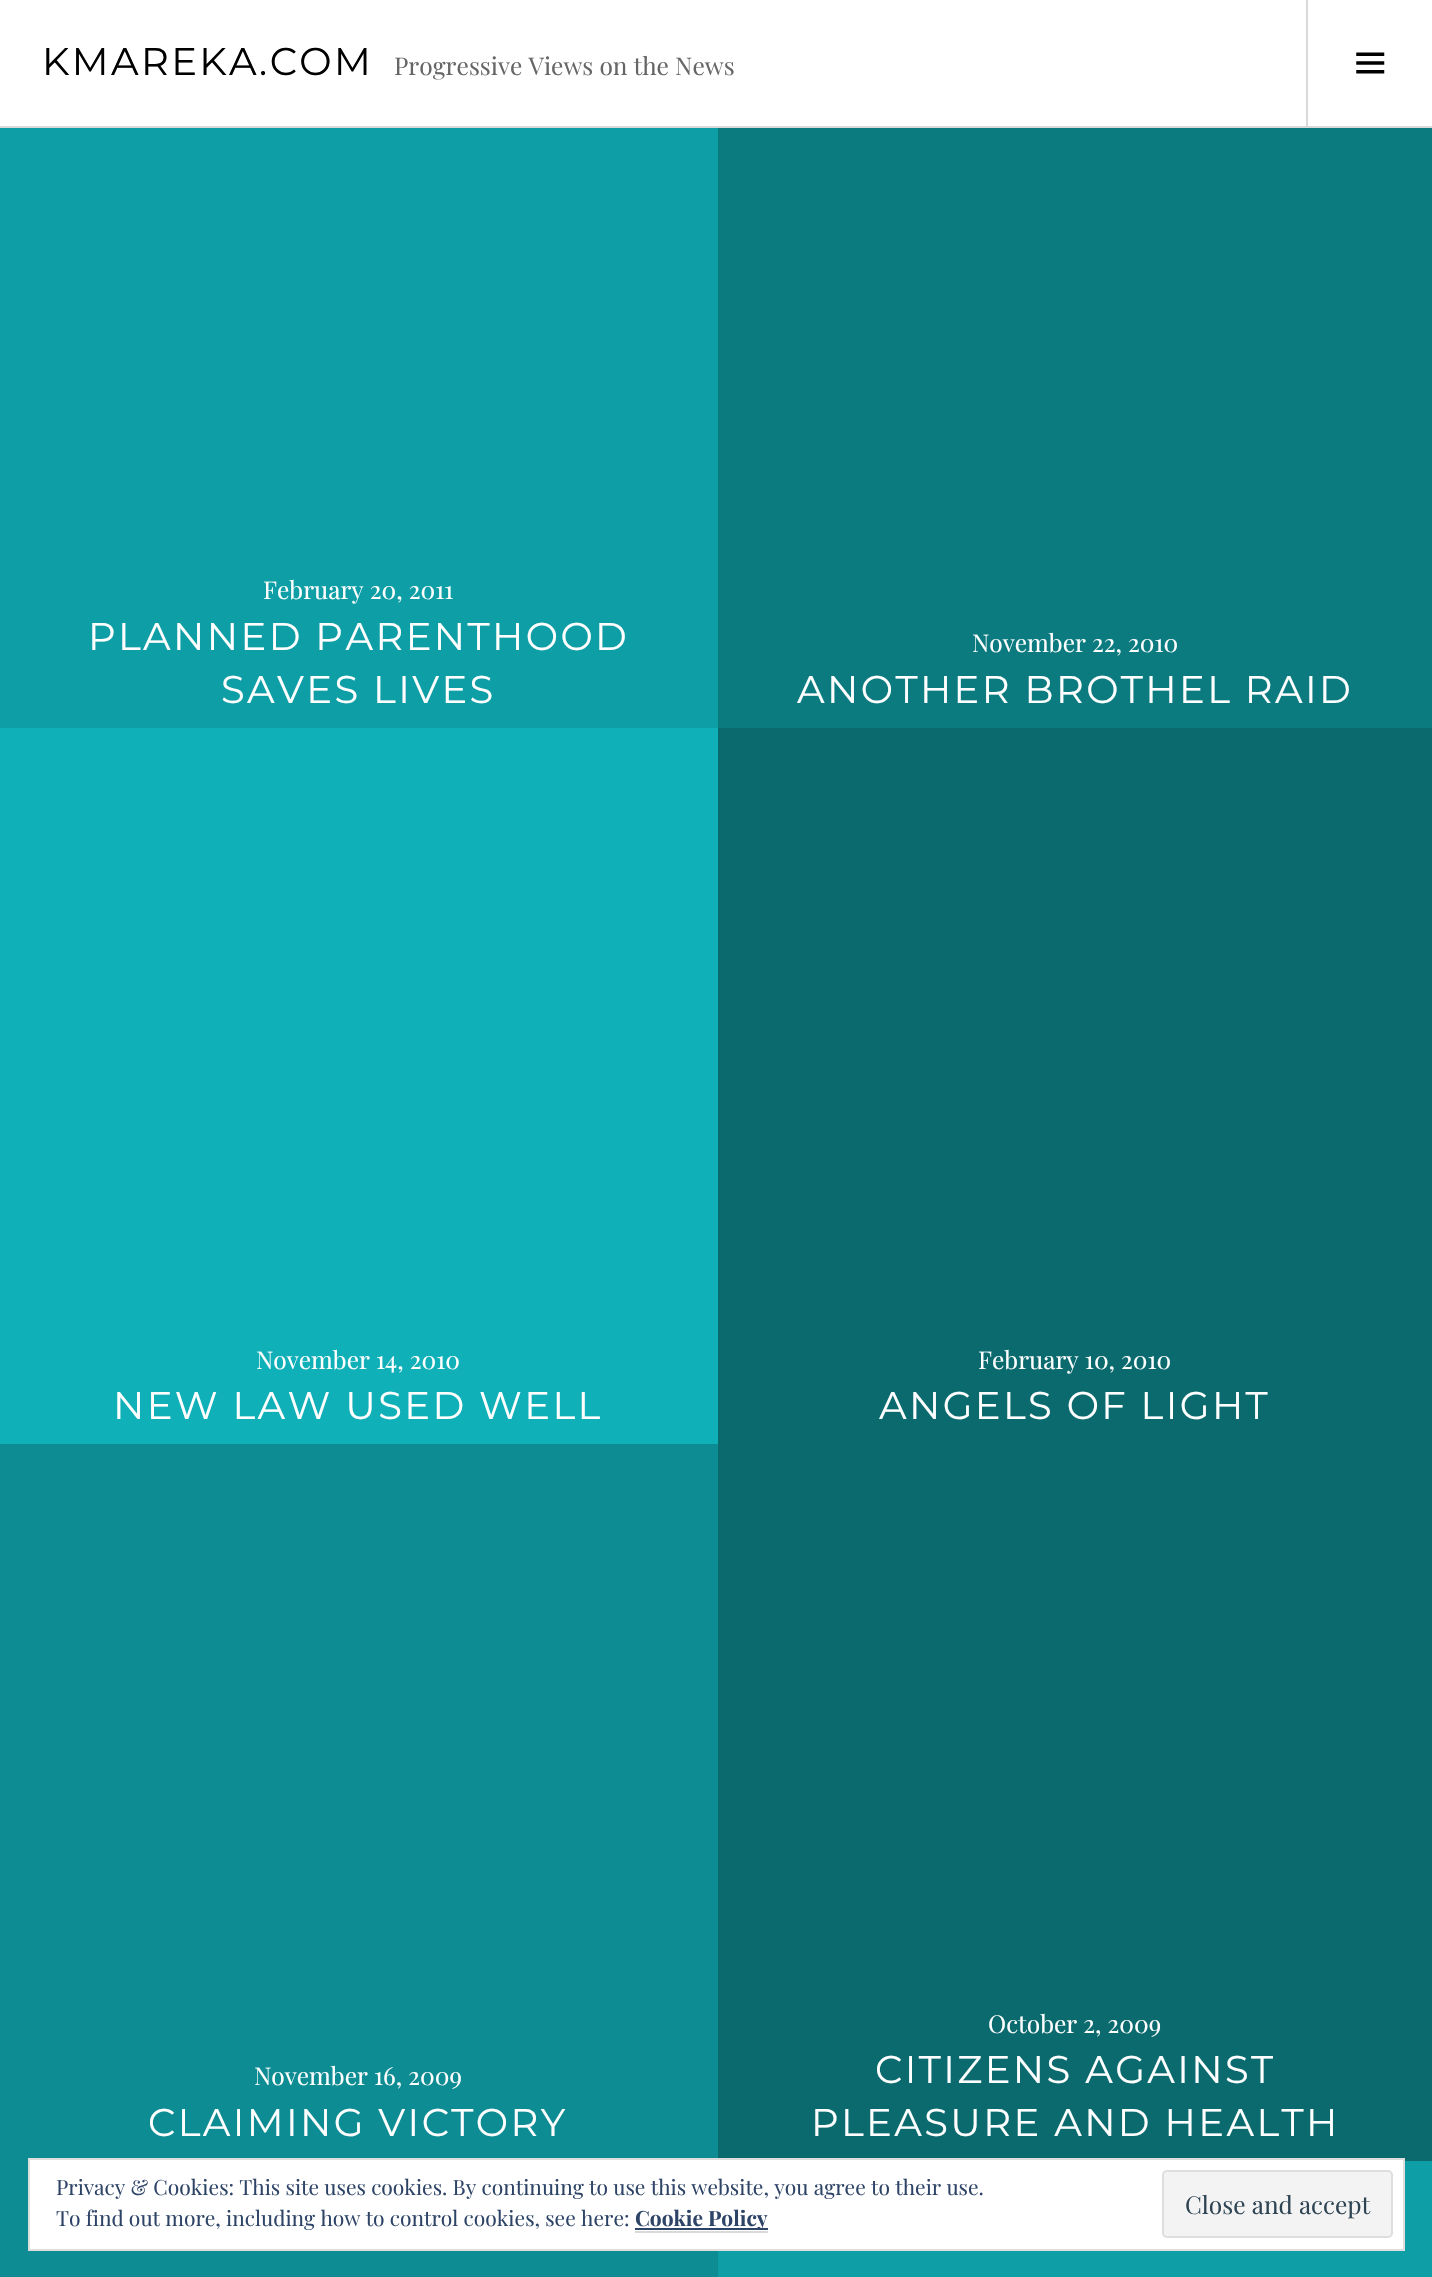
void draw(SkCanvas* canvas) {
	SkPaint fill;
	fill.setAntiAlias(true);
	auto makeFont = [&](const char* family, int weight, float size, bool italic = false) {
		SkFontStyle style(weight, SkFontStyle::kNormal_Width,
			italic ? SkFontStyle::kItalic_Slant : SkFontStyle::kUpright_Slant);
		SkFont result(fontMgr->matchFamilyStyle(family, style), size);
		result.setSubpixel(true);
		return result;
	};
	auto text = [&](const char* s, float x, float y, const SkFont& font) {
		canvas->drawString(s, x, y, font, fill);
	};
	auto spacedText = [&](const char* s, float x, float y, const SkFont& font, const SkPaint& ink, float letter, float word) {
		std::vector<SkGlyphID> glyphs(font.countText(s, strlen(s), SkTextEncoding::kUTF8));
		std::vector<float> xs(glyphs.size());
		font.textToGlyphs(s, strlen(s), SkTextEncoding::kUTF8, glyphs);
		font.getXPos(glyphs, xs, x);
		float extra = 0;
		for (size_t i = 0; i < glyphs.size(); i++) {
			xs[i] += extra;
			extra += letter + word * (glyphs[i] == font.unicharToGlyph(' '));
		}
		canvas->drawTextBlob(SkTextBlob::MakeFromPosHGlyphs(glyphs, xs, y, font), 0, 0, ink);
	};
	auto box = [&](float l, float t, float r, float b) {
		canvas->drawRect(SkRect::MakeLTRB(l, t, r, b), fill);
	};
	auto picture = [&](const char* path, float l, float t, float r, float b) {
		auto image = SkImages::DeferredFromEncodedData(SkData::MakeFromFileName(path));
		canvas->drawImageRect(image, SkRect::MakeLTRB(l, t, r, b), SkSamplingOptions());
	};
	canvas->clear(0xFF0E9EA5);
	fill.setColor(0xFFFFFFFF);
	box(0, 0, 1432, 126);
	fill.setColor(0xFFD9D9D9);
	box(0, 126, 1432, 128);
	box(1306, 0, 1308, 126);
	picture("image0.png", 1356, 52, 1385, 74);
	fill.setColor(0xFF0B7B80);
	box(718, 128, 1432, 728);
	fill.setColor(0xFF10B0B8);
	box(0, 728, 718, 1444);
	fill.setColor(0xFF0A6A6E);
	box(718, 728, 1432, 2161);
	fill.setColor(0xFF0D8D93);
	box(0, 1444, 718, 2277);
	fill.setColor(0xFFFFFFFF);
	canvas->drawRect(SkRect::MakeLTRB(29, 2159, 1404, 2250), fill);
	fill.setStyle(SkPaint::kStroke_Style);
	fill.setStrokeWidth(2);
	fill.setColor(0xFFDEDEDE);
	canvas->drawRect(SkRect::MakeLTRB(29, 2159, 1404, 2250), fill);
	fill.setStyle(SkPaint::kFill_Style);
	fill.setColor(0xFFD9D9D9);
	box(635, 2231, 768, 2233);
	fill.setColor(0xFF2E4467);
	box(635, 2228, 768, 2230);
	fill.setColor(0xFFF3F3F3);
	canvas->drawRoundRect(SkRect::MakeLTRB(1163, 2171, 1392, 2237), 4, 4, fill);
	fill.setStyle(SkPaint::kStroke_Style);
	fill.setColor(0xFFDEDEDE);
	canvas->drawRoundRect(SkRect::MakeLTRB(1163, 2171, 1392, 2237), 4, 4, fill);
	auto font1 = makeFont("Montserrat", 400, 38.5f);
	fill.setStyle(SkPaint::kFill_Style);
	fill.setColor(0xFF000000);
	spacedText("KMAREKA.COM", 42, 75, font1, fill, 2.4f, 0);
	auto font2 = makeFont("Playfair Display", 400, 24.5f);
	fill.setColor(0xFF666666);
	text("Progressive Views on the News", 394, 75, font2);
	fill.setColor(0xFFFFFFFF);
	text("February 20, 2011", 263, 599, font2);
	spacedText("PLANNED PARENTHOOD", 88, 650, font1, fill, 2.4f, 0);
	spacedText("SAVES LIVES", 221, 703, font1, fill, 2.4f, 0);
	text("November 22, 2010", 972, 652, font2);
	spacedText("ANOTHER BROTHEL RAID", 797, 703, font1, fill, 2.4f, 0);
	text("November 14, 2010", 256, 1369, font2);
	spacedText("NEW LAW USED WELL", 113, 1419, font1, fill, 2.4f, 0);
	text("February 10, 2010", 978, 1369, font2);
	spacedText("ANGELS OF LIGHT", 879, 1419, font1, fill, 2.4f, 0);
	text("November 16, 2009", 254, 2085, font2);
	spacedText("CLAIMING VICTORY", 148, 2136, font1, fill, 2.4f, 0);
	text("October 2, 2009", 988, 2033, font2);
	spacedText("CITIZENS AGAINST", 875, 2083, font1, fill, 2.4f, 0);
	spacedText("PLEASURE AND HEALTH", 811, 2136, font1, fill, 2.4f, 0);
	auto font3 = makeFont("Playfair Display", 400, 21);
	fill.setColor(0xFF2E4467);
	text("Privacy & Cookies: This site uses cookies. By continuing to use this website, you agree to their use.", 56, 2195, font3);
	text("To find out more, including how to control cookies, see here:", 56, 2226, font3);
	auto font4 = makeFont("Playfair Display", 700, 21);
	text("Cookie Policy", 635, 2226, font4);
	fill.setColor(0xFF2E4453);
	text("Close and accept", 1185, 2214, font2);
}
